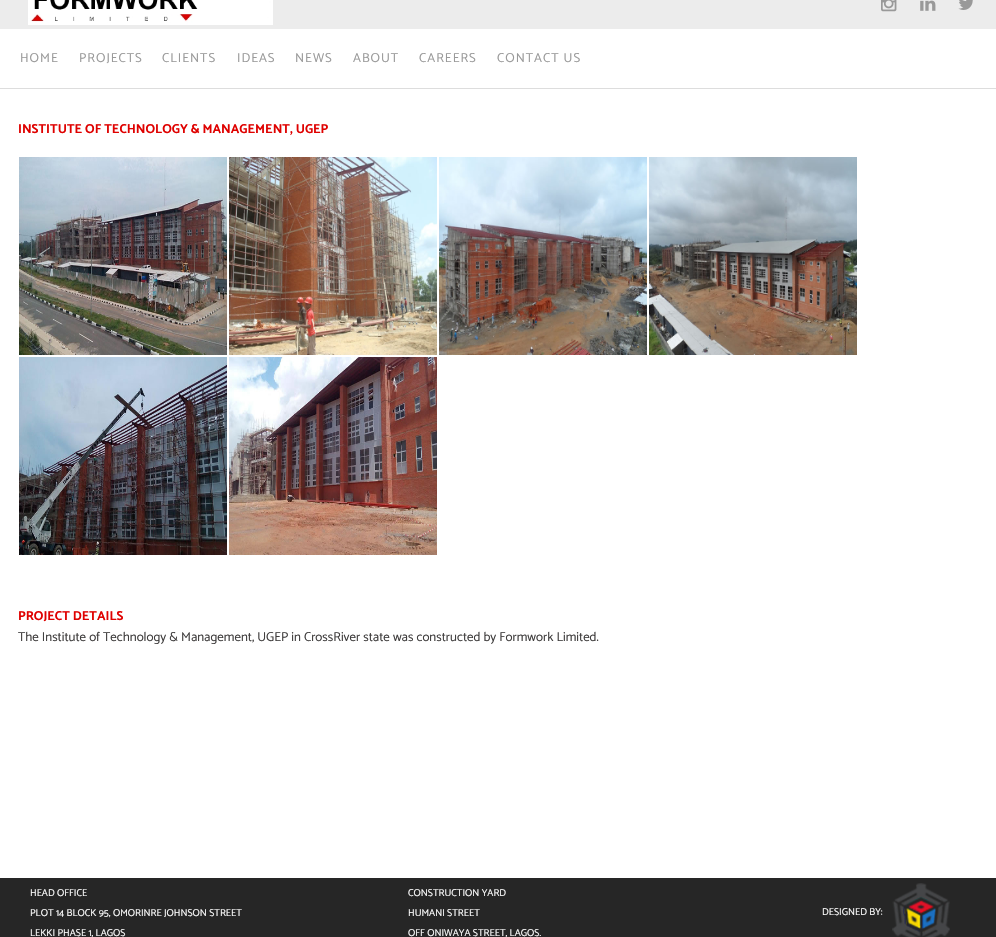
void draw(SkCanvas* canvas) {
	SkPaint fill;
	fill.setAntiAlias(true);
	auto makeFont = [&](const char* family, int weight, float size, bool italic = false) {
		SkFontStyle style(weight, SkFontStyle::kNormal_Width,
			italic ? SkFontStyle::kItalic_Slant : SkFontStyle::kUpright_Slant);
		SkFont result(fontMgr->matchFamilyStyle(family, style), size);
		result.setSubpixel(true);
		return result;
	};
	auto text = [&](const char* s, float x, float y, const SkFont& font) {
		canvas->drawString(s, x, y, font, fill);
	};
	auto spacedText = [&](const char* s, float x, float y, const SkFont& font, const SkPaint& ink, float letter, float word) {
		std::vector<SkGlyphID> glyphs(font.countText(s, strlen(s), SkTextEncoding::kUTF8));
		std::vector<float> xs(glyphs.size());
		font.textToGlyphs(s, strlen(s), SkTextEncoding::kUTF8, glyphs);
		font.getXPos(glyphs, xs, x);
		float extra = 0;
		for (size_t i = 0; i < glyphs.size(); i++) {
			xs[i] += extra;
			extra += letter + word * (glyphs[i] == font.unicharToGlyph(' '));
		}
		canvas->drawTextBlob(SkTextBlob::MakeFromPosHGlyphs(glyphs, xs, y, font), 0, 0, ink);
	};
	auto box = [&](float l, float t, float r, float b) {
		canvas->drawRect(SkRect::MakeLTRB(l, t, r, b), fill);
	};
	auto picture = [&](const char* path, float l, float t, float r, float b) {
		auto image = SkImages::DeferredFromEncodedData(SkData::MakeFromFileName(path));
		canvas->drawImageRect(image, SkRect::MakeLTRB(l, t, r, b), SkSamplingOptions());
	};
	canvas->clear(0xFFFFFFFF);
	fill.setColor(0xFFECECEC);
	box(0, 0, 996, 29);
	picture("image0.png", 28, 0, 273, 25);
	picture("image1.png", 881, 0, 897, 12);
	picture("image2.png", 920, 0, 936, 11);
	picture("image3.png", 958, 0, 973, 10);
	fill.setColor(0xFFDDDDDD);
	box(0, 88, 996, 89);
	picture("image4.png", 19, 157, 227, 355);
	picture("image5.png", 229, 157, 437, 355);
	picture("image6.png", 439, 157, 647, 355);
	picture("image7.png", 649, 157, 857, 355);
	picture("image8.png", 19, 357, 227, 555);
	picture("image9.png", 229, 357, 437, 555);
	fill.setColor(0xFF262626);
	box(0, 878, 996, 937);
	picture("image10.png", 892, 883, 950, 937);
	auto font1 = makeFont("Catamaran", 400, 13);
	fill.setColor(0xFF999999);
	spacedText("HOME", 20, 62, font1, fill, 1, 0);
	spacedText("PROJECTS", 79, 62, font1, fill, 1, 0);
	spacedText("CLIENTS", 162, 62, font1, fill, 1, 0);
	spacedText("IDEAS", 237, 62, font1, fill, 1, 0);
	spacedText("NEWS", 295, 62, font1, fill, 1, 0);
	spacedText("ABOUT", 353, 62, font1, fill, 1, 0);
	spacedText("CAREERS", 419, 62, font1, fill, 1, 0);
	spacedText("CONTACT US", 497, 62, font1, fill, 1, 0);
	auto font2 = makeFont("Catamaran", 700, 13);
	fill.setColor(0xFFDF0100);
	text("INSTITUTE OF TECHNOLOGY & MANAGEMENT, UGEP", 18, 133, font2);
	text("PROJECT DETAILS", 18, 620, font2);
	fill.setColor(0xFF403E3E);
	text("The Institute of Technology & Management, UGEP in CrossRiver state was constructed by Formwork Limited.", 18, 641, font1);
	auto font3 = makeFont("Catamaran", 400, 10);
	fill.setColor(0xFFFFFFFF);
	text("HEAD OFFICE", 30, 896, font3);
	text("PLOT 14 BLOCK 95, OMORINRE JOHNSON STREET", 30, 916, font3);
	text("LEKKI PHASE 1, LAGOS", 30, 936, font3);
	text("CONSTRUCTION YARD", 408, 896, font3);
	text("HUMANI STREET", 408, 916, font3);
	text("OFF ONIWAYA STREET, LAGOS.", 408, 936, font3);
	text("DESIGNED BY:", 822, 915, font3);
}
